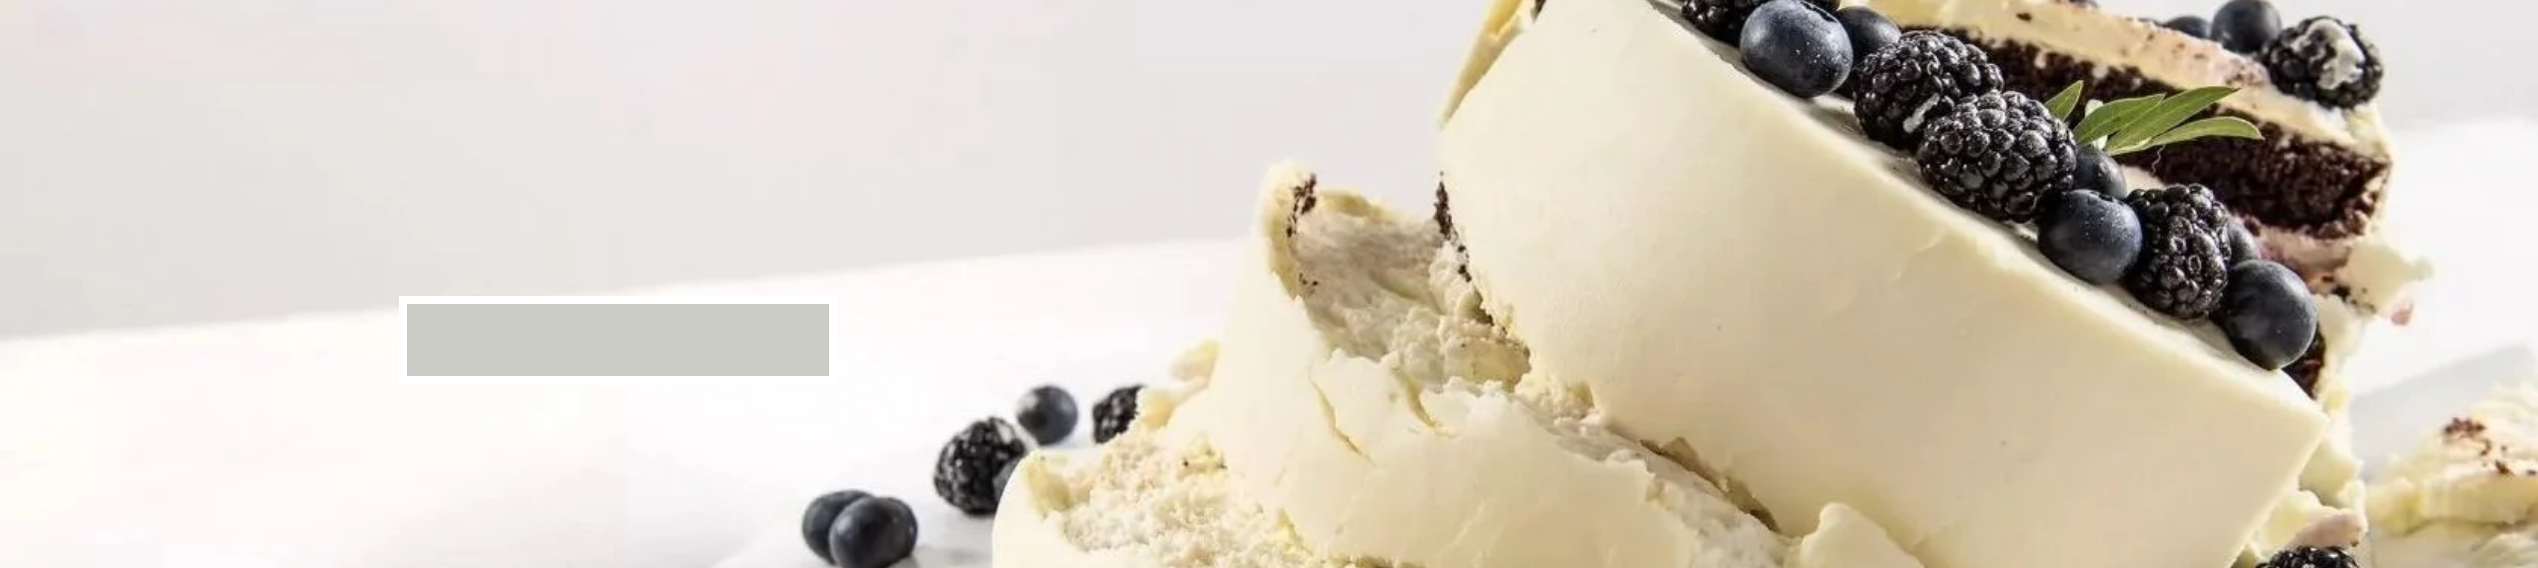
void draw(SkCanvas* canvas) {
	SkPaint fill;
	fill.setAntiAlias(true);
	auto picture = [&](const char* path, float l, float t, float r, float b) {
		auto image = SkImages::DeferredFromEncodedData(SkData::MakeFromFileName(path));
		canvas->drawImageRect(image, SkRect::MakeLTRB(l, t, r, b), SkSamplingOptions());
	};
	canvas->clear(0xFFFFFFFF);
	picture("image0.png", 0, 0, 2538, 568);
	fill.setColor(0xFFCCCCC7);
	canvas->drawRect(SkRect::MakeLTRB(403, 300, 833, 380), fill);
	fill.setStyle(SkPaint::kStroke_Style);
	fill.setStrokeWidth(8);
	fill.setColor(0xFFFFFFFF);
	canvas->drawRect(SkRect::MakeLTRB(403, 300, 833, 380), fill);
}
